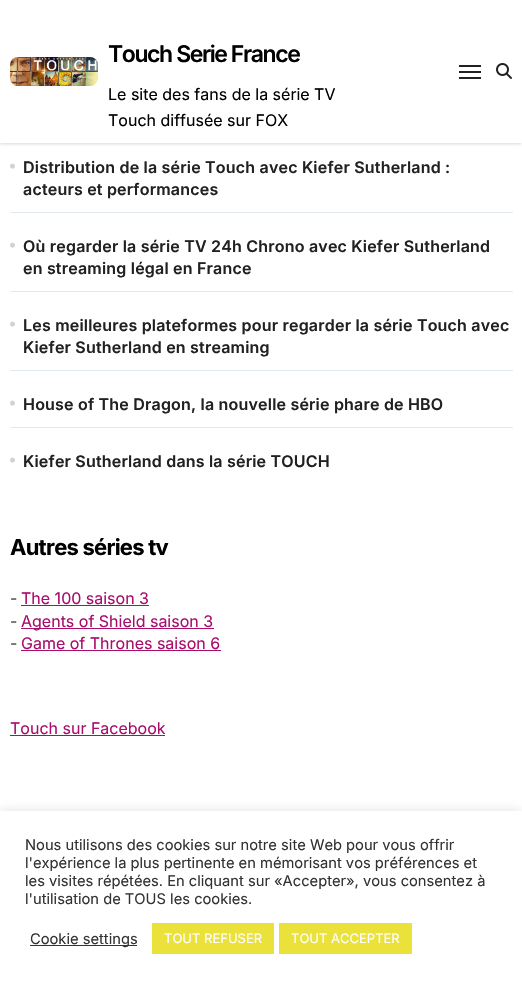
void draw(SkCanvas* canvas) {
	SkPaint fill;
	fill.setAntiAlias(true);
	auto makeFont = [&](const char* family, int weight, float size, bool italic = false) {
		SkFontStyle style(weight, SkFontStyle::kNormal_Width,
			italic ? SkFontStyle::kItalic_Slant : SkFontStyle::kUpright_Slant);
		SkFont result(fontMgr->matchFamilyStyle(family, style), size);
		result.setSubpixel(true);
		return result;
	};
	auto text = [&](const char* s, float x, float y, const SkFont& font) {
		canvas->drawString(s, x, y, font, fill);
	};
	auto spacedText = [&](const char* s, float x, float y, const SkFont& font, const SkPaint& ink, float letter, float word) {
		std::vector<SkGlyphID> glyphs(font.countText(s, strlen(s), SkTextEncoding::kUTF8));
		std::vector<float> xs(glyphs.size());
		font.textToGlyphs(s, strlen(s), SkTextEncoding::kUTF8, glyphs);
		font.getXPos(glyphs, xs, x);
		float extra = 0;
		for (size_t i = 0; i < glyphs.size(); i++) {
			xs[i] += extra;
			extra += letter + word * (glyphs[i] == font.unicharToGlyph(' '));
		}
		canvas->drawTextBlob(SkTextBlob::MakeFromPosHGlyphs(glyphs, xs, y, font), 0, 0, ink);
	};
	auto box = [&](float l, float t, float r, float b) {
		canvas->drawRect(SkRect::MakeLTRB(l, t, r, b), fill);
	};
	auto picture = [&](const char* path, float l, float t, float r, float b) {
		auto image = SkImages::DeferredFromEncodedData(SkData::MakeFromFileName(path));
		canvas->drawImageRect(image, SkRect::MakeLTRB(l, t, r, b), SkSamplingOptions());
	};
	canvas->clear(0xFFFFFFFF);
	fill.setColor(0x26000000);
	fill.setMaskFilter(SkMaskFilter::MakeBlur(kNormal_SkBlurStyle, 1.5f));
	canvas->drawRect(SkRect::MakeLTRB(0, 1, 522, 144), fill);
	fill.setMaskFilter(nullptr);
	fill.setColor(0xFFFFFFFF);
	box(0, 0, 522, 143);
	picture("image0.png", 10, 57, 98, 86);
	fill.setColor(0xFF212121);
	box(459, 65, 481, 67);
	box(459, 71, 481, 73);
	box(459, 77, 481, 79);
	picture("image1.png", 496, 63, 512, 79);
	fill.setColor(0xFFE2E8F0);
	box(10, 212, 513, 213);
	picture("image2.png", 10, 163, 15, 169);
	box(10, 291, 513, 292);
	picture("image2.png", 10, 242, 15, 248);
	box(10, 370, 513, 371);
	picture("image2.png", 10, 321, 15, 327);
	box(10, 427, 513, 428);
	picture("image2.png", 10, 400, 15, 406);
	picture("image2.png", 10, 457, 15, 463);
	fill.setColor(0xFFA90E6D);
	box(21, 605, 149, 606);
	box(21, 628, 214, 629);
	box(21, 650, 221, 651);
	box(10, 735, 165, 736);
	fill.setColor(0x4DACABAB);
	fill.setMaskFilter(SkMaskFilter::MakeBlur(kNormal_SkBlurStyle, 5));
	canvas->drawRect(SkRect::MakeLTRB(0, 810, 522, 983), fill);
	fill.setMaskFilter(nullptr);
	fill.setColor(0xFFFFFFFF);
	box(0, 811, 522, 984);
	fill.setColor(0xFF333333);
	box(30, 945, 137, 946);
	fill.setColor(0xFFEAE13A);
	box(152, 923, 274, 954);
	box(279, 923, 412, 954);
	auto font1 = makeFont("Inter", 600, 23);
	fill.setColor(0xFF000000);
	spacedText("Touch Serie France", 108, 62, font1, fill, -1.4f, 0);
	auto font2 = makeFont("Inter", 400, 16);
	text("Le site des fans de la série TV", 108, 100, font2);
	text("Touch diffusée sur FOX", 108, 126, font2);
	auto font3 = makeFont("Inter", 600, 16);
	fill.setColor(0xFF212121);
	spacedText("Distribution de la série Touch avec Kiefer Sutherland :", 23, 173, font3, fill, 0.2f, 0);
	spacedText("acteurs et performances", 23, 195, font3, fill, 0.2f, 0);
	spacedText("Où regarder la série TV 24h Chrono avec Kiefer Sutherland", 23, 252, font3, fill, 0.2f, 0);
	spacedText("en streaming légal en France", 23, 274, font3, fill, 0.2f, 0);
	spacedText("Les meilleures plateformes pour regarder la série Touch avec", 23, 331, font3, fill, 0.2f, 0);
	spacedText("Kiefer Sutherland en streaming", 23, 353, font3, fill, 0.2f, 0);
	spacedText("House of The Dragon, la nouvelle série phare de HBO", 23, 410, font3, fill, 0.2f, 0);
	spacedText("Kiefer Sutherland dans la série TOUCH", 23, 467, font3, fill, 0.2f, 0);
	auto font4 = makeFont("Inter", 700, 22);
	fill.setColor(0xFF000000);
	spacedText("Autres séries tv", 10, 555, font4, fill, -0.75f, 0);
	fill.setColor(0xFF4C4C4C);
	text("-", 10, 604, font2);
	fill.setColor(0xFFA90E6D);
	text("The 100 saison 3", 21, 604, font2);
	fill.setColor(0xFF4C4C4C);
	text("-", 10, 627, font2);
	fill.setColor(0xFFA90E6D);
	text("Agents of Shield saison 3", 21, 627, font2);
	fill.setColor(0xFF4C4C4C);
	text("-", 10, 649, font2);
	fill.setColor(0xFFA90E6D);
	text("Game of Thrones saison 6", 21, 649, font2);
	text("Touch sur Facebook", 10, 734, font2);
	auto font5 = makeFont("Inter", 400, 14.7f);
	fill.setColor(0xFF333333);
	text("Nous utilisons des cookies sur notre site Web pour vous offrir", 25, 850, font5);
	text("l'expérience la plus pertinente en mémorisant vos préférences et", 25, 868, font5);
	text("les visites répétées. En cliquant sur «Accepter», vous consentez à", 25, 886, font5);
	text("l'utilisation de TOUS les cookies.", 25, 904, font5);
	text("Cookie settings", 30, 944, font5);
	auto font6 = makeFont("Inter", 400, 13);
	fill.setColor(0xFFFFFFFF);
	text("TOUT REFUSER", 164, 943, font6);
	text("TOUT ACCEPTER", 291, 943, font6);
}
